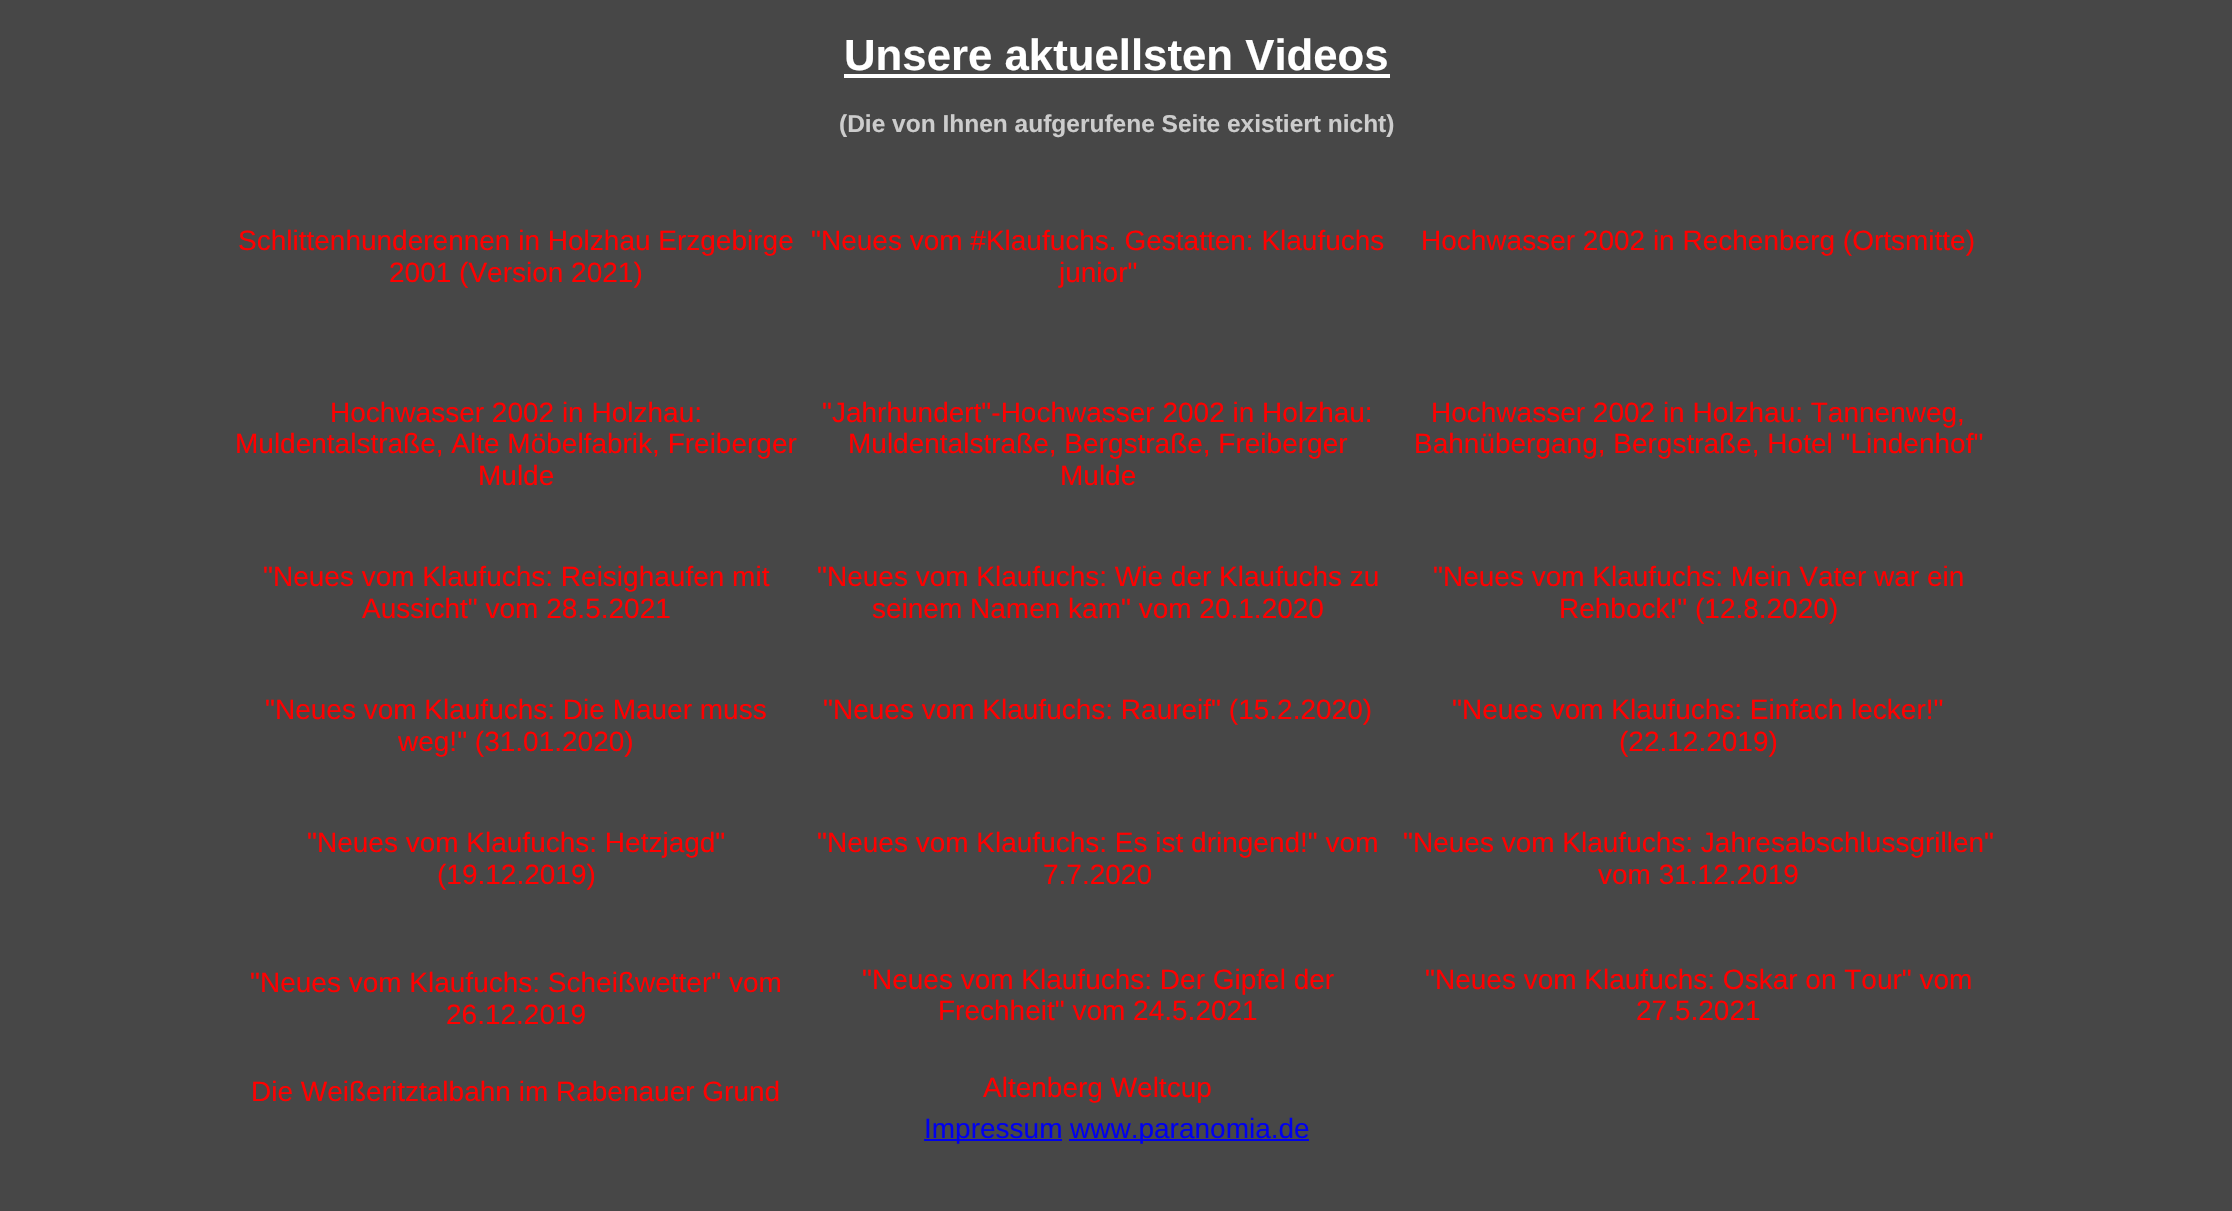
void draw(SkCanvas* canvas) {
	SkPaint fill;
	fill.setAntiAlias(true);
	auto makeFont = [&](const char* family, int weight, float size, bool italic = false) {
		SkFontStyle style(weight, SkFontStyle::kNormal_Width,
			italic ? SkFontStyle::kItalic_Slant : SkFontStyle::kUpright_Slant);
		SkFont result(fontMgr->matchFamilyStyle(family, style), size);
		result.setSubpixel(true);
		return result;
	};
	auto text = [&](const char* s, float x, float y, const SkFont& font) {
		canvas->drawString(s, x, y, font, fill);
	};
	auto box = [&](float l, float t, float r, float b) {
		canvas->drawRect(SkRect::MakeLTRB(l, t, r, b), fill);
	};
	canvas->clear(0xFF474747);
	fill.setColor(0xFFFFFFFF);
	box(844, 74, 1390, 78);
	fill.setColor(0xFF0000EE);
	box(924, 1139, 1062, 1141);
	box(1069, 1139, 1309, 1141);
	auto font1 = makeFont("Liberation Sans", 700, 43.75f);
	fill.setColor(0xFFFFFFFF);
	text("Unsere aktuellsten Videos", 844, 70, font1);
	auto font2 = makeFont("Liberation Sans", 700, 24.5f);
	fill.setColor(0xFFCCCCCC);
	text("(Die von Ihnen aufgerufene Seite existiert nicht)", 839, 132, font2);
	auto font3 = makeFont("Liberation Sans", 400, 28);
	fill.setColor(0xFFFF0000);
	text("Schlittenhunderennen in Holzhau Erzgebirge", 238, 250, font3);
	text("2001 (Version 2021)", 389, 282, font3);
	text("\"Neues vom #Klaufuchs. Gestatten: Klaufuchs", 811, 250, font3);
	text("junior\"", 1059, 282, font3);
	text("Hochwasser 2002 in Rechenberg (Ortsmitte)", 1421, 250, font3);
	text("Hochwasser 2002 in Holzhau:", 330, 422, font3);
	text("Muldentalstraße, Alte Möbelfabrik, Freiberger", 235, 453, font3);
	text("Mulde", 478, 485, font3);
	text("\"Jahrhundert\"-Hochwasser 2002 in Holzhau:", 822, 422, font3);
	text("Muldentalstraße, Bergstraße, Freiberger", 848, 453, font3);
	text("Mulde", 1060, 485, font3);
	text("Hochwasser 2002 in Holzhau: Tannenweg,", 1431, 422, font3);
	text("Bahnübergang, Bergstraße, Hotel \"Lindenhof\"", 1414, 453, font3);
	text("\"Neues vom Klaufuchs: Reisighaufen mit", 263, 586, font3);
	text("Aussicht\" vom 28.5.2021", 362, 618, font3);
	text("\"Neues vom Klaufuchs: Wie der Klaufuchs zu", 817, 586, font3);
	text("seinem Namen kam\" vom 20.1.2020", 872, 618, font3);
	text("\"Neues vom Klaufuchs: Mein Vater war ein", 1433, 586, font3);
	text("Rehbock!\" (12.8.2020)", 1559, 618, font3);
	text("\"Neues vom Klaufuchs: Die Mauer muss", 265, 719, font3);
	text("weg!\" (31.01.2020)", 398, 751, font3);
	text("\"Neues vom Klaufuchs: Raureif\" (15.2.2020)", 823, 719, font3);
	text("\"Neues vom Klaufuchs: Einfach lecker!\"", 1452, 719, font3);
	text("(22.12.2019)", 1619, 751, font3);
	text("\"Neues vom Klaufuchs: Hetzjagd\"", 307, 852, font3);
	text("(19.12.2019)", 437, 884, font3);
	text("\"Neues vom Klaufuchs: Es ist dringend!\" vom", 817, 852, font3);
	text("7.7.2020", 1043, 884, font3);
	text("\"Neues vom Klaufuchs: Jahresabschlussgrillen\"", 1403, 852, font3);
	text("vom 31.12.2019", 1598, 884, font3);
	text("\"Neues vom Klaufuchs: Scheißwetter\" vom", 250, 992, font3);
	text("26.12.2019", 446, 1024, font3);
	text("\"Neues vom Klaufuchs: Der Gipfel der", 862, 989, font3);
	text("Frechheit\" vom 24.5.2021", 938, 1020, font3);
	text("\"Neues vom Klaufuchs: Oskar on Tour\" vom", 1425, 989, font3);
	text("27.5.2021", 1636, 1020, font3);
	text("Die Weißeritztalbahn im Rabenauer Grund", 251, 1101, font3);
	text("Altenberg Weltcup", 983, 1097, font3);
	fill.setColor(0xFF0000EE);
	text("Impressum", 924, 1138, font3);
	text("www.paranomia.de", 1070, 1138, font3);
}
